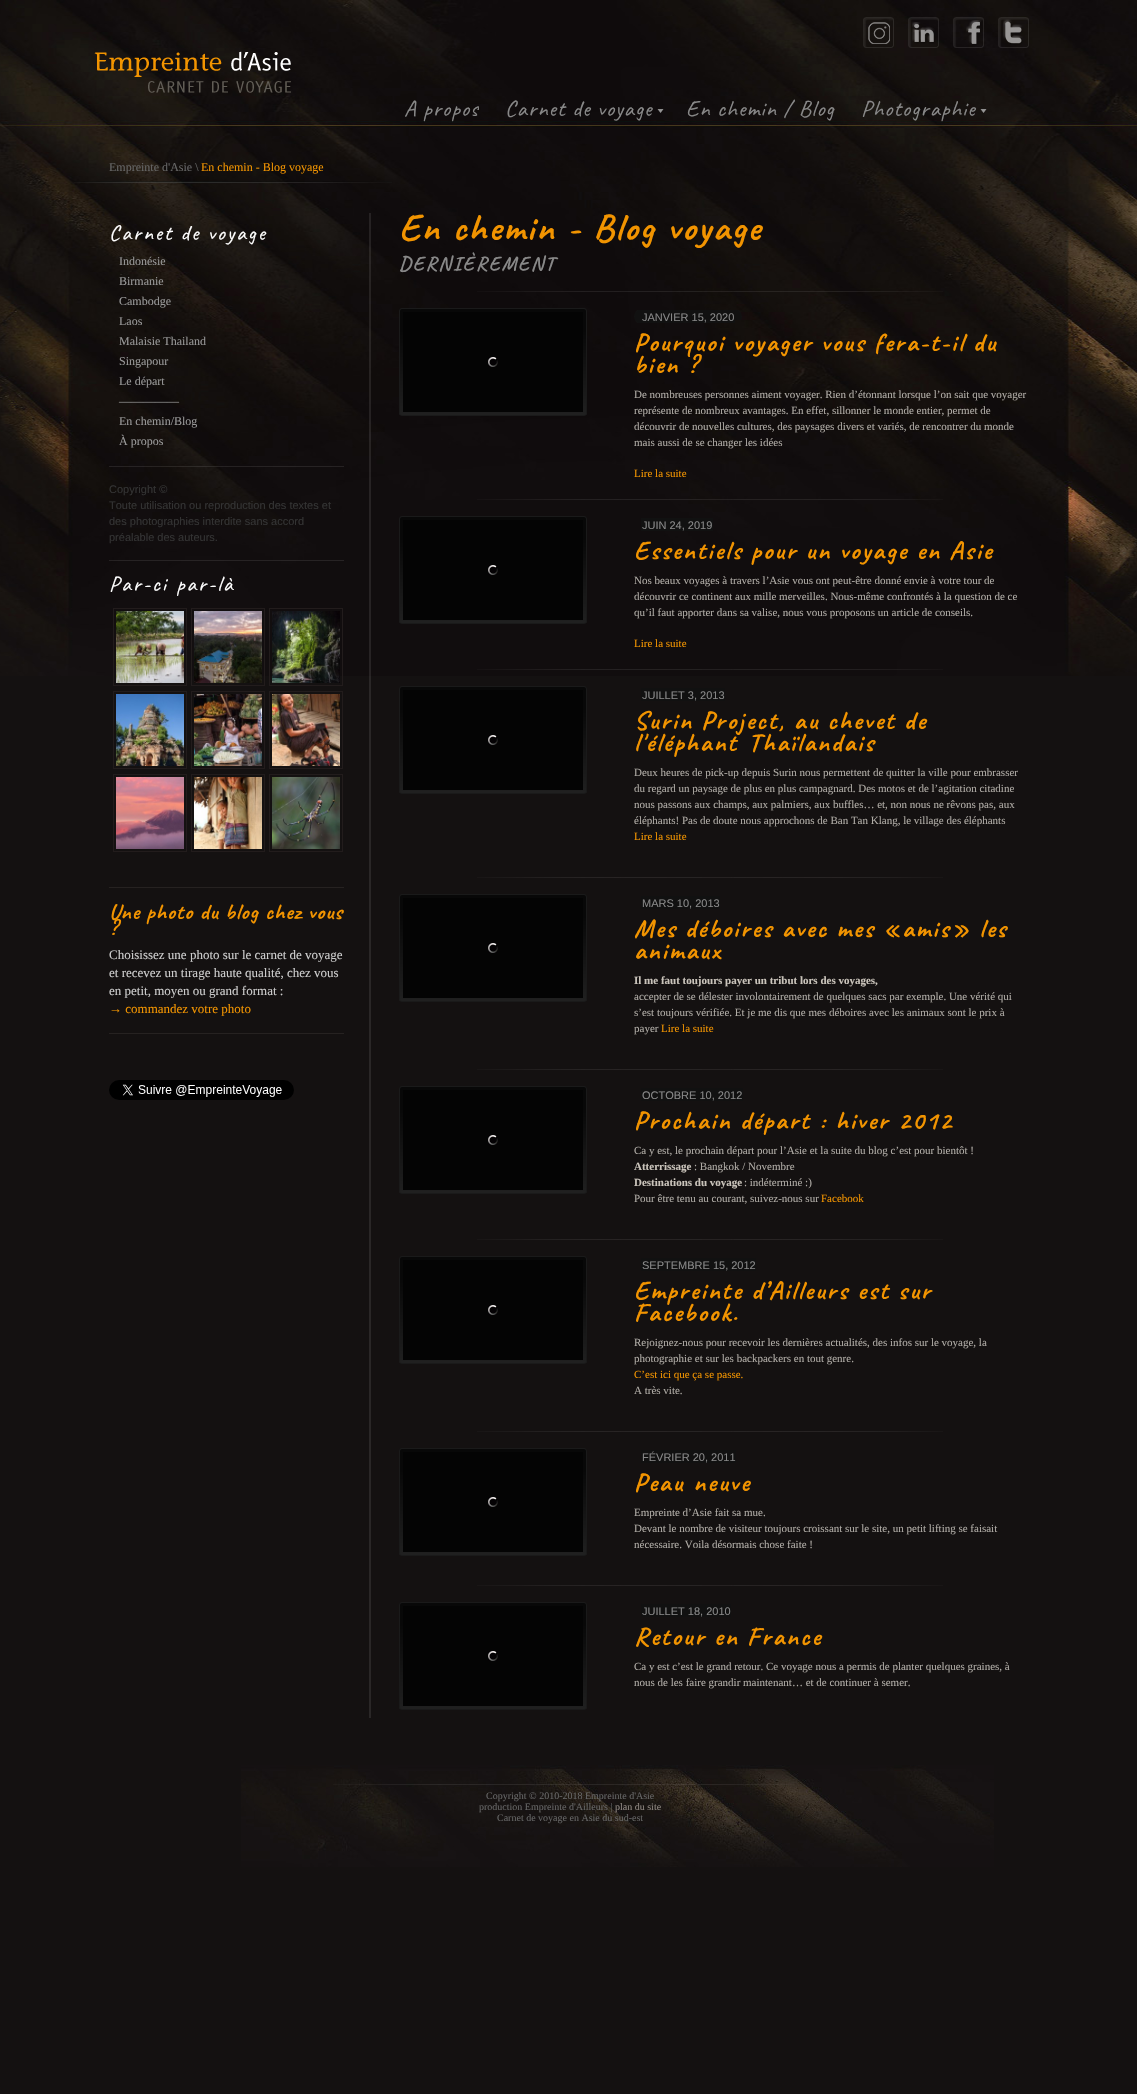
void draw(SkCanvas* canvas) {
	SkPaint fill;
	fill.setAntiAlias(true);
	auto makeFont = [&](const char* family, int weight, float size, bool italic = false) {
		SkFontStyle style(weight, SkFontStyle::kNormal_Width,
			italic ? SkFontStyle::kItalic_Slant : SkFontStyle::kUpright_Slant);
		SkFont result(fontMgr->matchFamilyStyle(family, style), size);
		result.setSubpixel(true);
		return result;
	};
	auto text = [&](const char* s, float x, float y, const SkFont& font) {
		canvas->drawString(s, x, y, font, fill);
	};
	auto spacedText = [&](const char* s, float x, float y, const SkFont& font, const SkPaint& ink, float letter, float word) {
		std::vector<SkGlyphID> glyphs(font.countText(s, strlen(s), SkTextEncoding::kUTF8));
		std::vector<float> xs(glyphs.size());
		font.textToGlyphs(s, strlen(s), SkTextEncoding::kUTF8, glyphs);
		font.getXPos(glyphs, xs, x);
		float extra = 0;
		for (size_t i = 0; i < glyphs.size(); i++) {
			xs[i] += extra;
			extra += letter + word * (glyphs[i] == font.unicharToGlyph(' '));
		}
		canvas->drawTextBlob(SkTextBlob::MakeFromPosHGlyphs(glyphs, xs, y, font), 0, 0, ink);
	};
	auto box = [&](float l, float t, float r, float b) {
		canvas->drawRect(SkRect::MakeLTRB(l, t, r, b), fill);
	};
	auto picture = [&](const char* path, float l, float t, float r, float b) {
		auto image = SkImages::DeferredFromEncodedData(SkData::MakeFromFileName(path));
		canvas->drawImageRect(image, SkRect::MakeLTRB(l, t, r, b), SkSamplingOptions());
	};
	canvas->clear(0xFF141111);
	picture("image0.png", 0, 0, 1137, 676);
	picture("image1.png", 863, 17, 894, 48);
	picture("image2.png", 908, 17, 939, 48);
	picture("image3.png", 953, 17, 984, 48);
	picture("image4.png", 998, 17, 1029, 48);
	picture("image5.png", 94, 51, 291, 93);
	picture("image6.png", 657, 109, 664, 113);
	picture("image7.png", 980, 109, 987, 113);
	picture("image8.png", 74, 168, 392, 183);
	fill.setColor(0x17FFFFFF);
	box(109, 466, 344, 467);
	box(109, 560, 344, 561);
	fill.setColor(0xFF262221);
	box(109, 887, 344, 888);
	fill.setStyle(SkPaint::kStroke_Style);
	fill.setStrokeWidth(1);
	fill.setColor(0xFF221C1C);
	canvas->drawRect(SkRect::MakeLTRB(113.5f, 608.5f, 186.5f, 685.5f), fill);
	canvas->drawRect(SkRect::MakeLTRB(191.5f, 608.5f, 264.5f, 685.5f), fill);
	canvas->drawRect(SkRect::MakeLTRB(269.5f, 608.5f, 342.5f, 685.5f), fill);
	picture("image9.png", 116, 611, 184, 683);
	picture("image10.png", 194, 611, 262, 683);
	picture("image11.png", 272, 611, 340, 683);
	canvas->drawRect(SkRect::MakeLTRB(113.5f, 691.5f, 186.5f, 768.5f), fill);
	canvas->drawRect(SkRect::MakeLTRB(191.5f, 691.5f, 264.5f, 768.5f), fill);
	canvas->drawRect(SkRect::MakeLTRB(269.5f, 691.5f, 342.5f, 768.5f), fill);
	picture("image12.png", 116, 694, 184, 766);
	picture("image13.png", 194, 694, 262, 766);
	picture("image14.png", 272, 694, 340, 766);
	canvas->drawRect(SkRect::MakeLTRB(113.5f, 774.5f, 186.5f, 851.5f), fill);
	canvas->drawRect(SkRect::MakeLTRB(191.5f, 774.5f, 264.5f, 851.5f), fill);
	canvas->drawRect(SkRect::MakeLTRB(269.5f, 774.5f, 342.5f, 851.5f), fill);
	picture("image15.png", 116, 777, 184, 849);
	picture("image16.png", 194, 777, 262, 849);
	picture("image17.png", 272, 777, 340, 849);
	fill.setStyle(SkPaint::kFill_Style);
	fill.setColor(0xFF262221);
	box(109, 1033, 344, 1034);
	picture("image18.png", 109, 1080, 294, 1100);
	fill.setColor(0x17FFFFFF);
	box(369, 213, 371, 1718);
	picture("image19.png", 477, 291, 943, 292);
	canvas->save();
	canvas->clipPath(SkPathBuilder().moveTo(402, 308).lineTo(584, 308).cubicTo(585.5f, 308, 587, 309.5f, 587, 311).lineTo(587, 413).cubicTo(587, 414.5f, 585.5f, 416, 584, 416).lineTo(402, 416).cubicTo(400.5f, 416, 399, 414.5f, 399, 413).lineTo(399, 311).cubicTo(399, 309.5f, 400.5f, 308, 402, 308).close().detach(), true);
	{
		const SkColor colors[] = {0xFF080808, 0xFF202020};
		const float stops[] = {0.2f, 1};
		const SkPoint ends[] = {{400, 309}, {400, 415}};
		fill.setShader(SkGradientShader::MakeLinear(ends, colors, stops, 2, SkTileMode::kClamp));
		fill.setAlpha(255);
	}
	box(399, 309, 587, 415);
	canvas->restore();
	fill.setStyle(SkPaint::kStroke_Style);
	fill.setShader(nullptr);
	fill.setColor(0xFF1A1A1A);
	canvas->drawRoundRect(SkRect::MakeLTRB(399.5f, 308.5f, 586.5f, 415.5f), 2.5f, 2.5f, fill);
	fill.setStyle(SkPaint::kFill_Style);
	fill.setColor(0xFF040404);
	box(403, 312, 583, 412);
	picture("image20.png", 488, 357, 498, 367);
	picture("image21.png", 634, 310, 641, 323);
	fill.setColor(0xFF111111);
	box(641, 310, 735, 323);
	picture("image22.png", 735, 310, 742, 320);
	picture("image23.png", 477, 499, 943, 500);
	canvas->save();
	canvas->clipPath(SkPathBuilder().moveTo(402, 516).lineTo(584, 516).cubicTo(585.5f, 516, 587, 517.5f, 587, 519).lineTo(587, 621).cubicTo(587, 622.5f, 585.5f, 624, 584, 624).lineTo(402, 624).cubicTo(400.5f, 624, 399, 622.5f, 399, 621).lineTo(399, 519).cubicTo(399, 517.5f, 400.5f, 516, 402, 516).close().detach(), true);
	{
		const SkColor colors[] = {0xFF080808, 0xFF202020};
		const float stops[] = {0.2f, 1};
		const SkPoint ends[] = {{400, 517}, {400, 623}};
		fill.setShader(SkGradientShader::MakeLinear(ends, colors, stops, 2, SkTileMode::kClamp));
		fill.setAlpha(255);
	}
	box(399, 517, 587, 623);
	canvas->restore();
	fill.setStyle(SkPaint::kStroke_Style);
	fill.setShader(nullptr);
	fill.setColor(0xFF1A1A1A);
	canvas->drawRoundRect(SkRect::MakeLTRB(399.5f, 516.5f, 586.5f, 623.5f), 2.5f, 2.5f, fill);
	fill.setStyle(SkPaint::kFill_Style);
	fill.setColor(0xFF040404);
	box(403, 520, 583, 620);
	picture("image20.png", 488, 565, 498, 575);
	fill.setColor(0xFF111111);
	box(641, 518, 713, 531);
	picture("image24.png", 477, 669, 943, 670);
	canvas->save();
	canvas->clipPath(SkPathBuilder().moveTo(402, 686).lineTo(584, 686).cubicTo(585.5f, 686, 587, 687.5f, 587, 689).lineTo(587, 791).cubicTo(587, 792.5f, 585.5f, 794, 584, 794).lineTo(402, 794).cubicTo(400.5f, 794, 399, 792.5f, 399, 791).lineTo(399, 689).cubicTo(399, 687.5f, 400.5f, 686, 402, 686).close().detach(), true);
	{
		const SkColor colors[] = {0xFF080808, 0xFF202020};
		const float stops[] = {0.2f, 1};
		const SkPoint ends[] = {{400, 687}, {400, 793}};
		fill.setShader(SkGradientShader::MakeLinear(ends, colors, stops, 2, SkTileMode::kClamp));
		fill.setAlpha(255);
	}
	box(399, 687, 587, 793);
	canvas->restore();
	fill.setStyle(SkPaint::kStroke_Style);
	fill.setShader(nullptr);
	fill.setColor(0xFF1A1A1A);
	canvas->drawRoundRect(SkRect::MakeLTRB(399.5f, 686.5f, 586.5f, 793.5f), 2.5f, 2.5f, fill);
	fill.setStyle(SkPaint::kFill_Style);
	fill.setColor(0xFF040404);
	box(403, 690, 583, 790);
	picture("image20.png", 488, 735, 498, 745);
	fill.setColor(0xFF111111);
	box(641, 688, 725, 701);
	picture("image25.png", 477, 877, 943, 878);
	canvas->save();
	canvas->clipPath(SkPathBuilder().moveTo(402, 894).lineTo(584, 894).cubicTo(585.5f, 894, 587, 895.5f, 587, 897).lineTo(587, 999).cubicTo(587, 1000.5f, 585.5f, 1002, 584, 1002).lineTo(402, 1002).cubicTo(400.5f, 1002, 399, 1000.5f, 399, 999).lineTo(399, 897).cubicTo(399, 895.5f, 400.5f, 894, 402, 894).close().detach(), true);
	{
		const SkColor colors[] = {0xFF080808, 0xFF202020};
		const float stops[] = {0.2f, 1};
		const SkPoint ends[] = {{400, 895}, {400, 1001}};
		fill.setShader(SkGradientShader::MakeLinear(ends, colors, stops, 2, SkTileMode::kClamp));
		fill.setAlpha(255);
	}
	box(399, 895, 587, 1001);
	canvas->restore();
	fill.setStyle(SkPaint::kStroke_Style);
	fill.setShader(nullptr);
	fill.setColor(0xFF1A1A1A);
	canvas->drawRoundRect(SkRect::MakeLTRB(399.5f, 894.5f, 586.5f, 1001.5f), 2.5f, 2.5f, fill);
	fill.setStyle(SkPaint::kFill_Style);
	fill.setColor(0xFF040404);
	box(403, 898, 583, 998);
	picture("image20.png", 488, 943, 498, 953);
	fill.setColor(0xFF111111);
	box(641, 896, 720, 909);
	picture("image25.png", 477, 1069, 943, 1070);
	canvas->save();
	canvas->clipPath(SkPathBuilder().moveTo(402, 1086).lineTo(584, 1086).cubicTo(585.5f, 1086, 587, 1087.5f, 587, 1089).lineTo(587, 1191).cubicTo(587, 1192.5f, 585.5f, 1194, 584, 1194).lineTo(402, 1194).cubicTo(400.5f, 1194, 399, 1192.5f, 399, 1191).lineTo(399, 1089).cubicTo(399, 1087.5f, 400.5f, 1086, 402, 1086).close().detach(), true);
	{
		const SkColor colors[] = {0xFF080808, 0xFF202020};
		const float stops[] = {0.2f, 1};
		const SkPoint ends[] = {{400, 1087}, {400, 1193}};
		fill.setShader(SkGradientShader::MakeLinear(ends, colors, stops, 2, SkTileMode::kClamp));
		fill.setAlpha(255);
	}
	box(399, 1087, 587, 1193);
	canvas->restore();
	fill.setStyle(SkPaint::kStroke_Style);
	fill.setShader(nullptr);
	fill.setColor(0xFF1A1A1A);
	canvas->drawRoundRect(SkRect::MakeLTRB(399.5f, 1086.5f, 586.5f, 1193.5f), 2.5f, 2.5f, fill);
	fill.setStyle(SkPaint::kFill_Style);
	fill.setColor(0xFF040404);
	box(403, 1090, 583, 1190);
	picture("image20.png", 488, 1135, 498, 1145);
	fill.setColor(0xFF111111);
	box(641, 1088, 743, 1101);
	picture("image25.png", 477, 1239, 943, 1240);
	canvas->save();
	canvas->clipPath(SkPathBuilder().moveTo(402, 1256).lineTo(584, 1256).cubicTo(585.5f, 1256, 587, 1257.5f, 587, 1259).lineTo(587, 1361).cubicTo(587, 1362.5f, 585.5f, 1364, 584, 1364).lineTo(402, 1364).cubicTo(400.5f, 1364, 399, 1362.5f, 399, 1361).lineTo(399, 1259).cubicTo(399, 1257.5f, 400.5f, 1256, 402, 1256).close().detach(), true);
	{
		const SkColor colors[] = {0xFF080808, 0xFF202020};
		const float stops[] = {0.2f, 1};
		const SkPoint ends[] = {{400, 1257}, {400, 1363}};
		fill.setShader(SkGradientShader::MakeLinear(ends, colors, stops, 2, SkTileMode::kClamp));
		fill.setAlpha(255);
	}
	box(399, 1257, 587, 1363);
	canvas->restore();
	fill.setStyle(SkPaint::kStroke_Style);
	fill.setShader(nullptr);
	fill.setColor(0xFF1A1A1A);
	canvas->drawRoundRect(SkRect::MakeLTRB(399.5f, 1256.5f, 586.5f, 1363.5f), 2.5f, 2.5f, fill);
	fill.setStyle(SkPaint::kFill_Style);
	fill.setColor(0xFF040404);
	box(403, 1260, 583, 1360);
	picture("image20.png", 488, 1305, 498, 1315);
	fill.setColor(0xFF111111);
	box(641, 1258, 756, 1271);
	picture("image25.png", 477, 1431, 943, 1432);
	canvas->save();
	canvas->clipPath(SkPathBuilder().moveTo(402, 1448).lineTo(584, 1448).cubicTo(585.5f, 1448, 587, 1449.5f, 587, 1451).lineTo(587, 1553).cubicTo(587, 1554.5f, 585.5f, 1556, 584, 1556).lineTo(402, 1556).cubicTo(400.5f, 1556, 399, 1554.5f, 399, 1553).lineTo(399, 1451).cubicTo(399, 1449.5f, 400.5f, 1448, 402, 1448).close().detach(), true);
	{
		const SkColor colors[] = {0xFF080808, 0xFF202020};
		const float stops[] = {0.2f, 1};
		const SkPoint ends[] = {{400, 1449}, {400, 1555}};
		fill.setShader(SkGradientShader::MakeLinear(ends, colors, stops, 2, SkTileMode::kClamp));
		fill.setAlpha(255);
	}
	box(399, 1449, 587, 1555);
	canvas->restore();
	fill.setStyle(SkPaint::kStroke_Style);
	fill.setShader(nullptr);
	fill.setColor(0xFF1A1A1A);
	canvas->drawRoundRect(SkRect::MakeLTRB(399.5f, 1448.5f, 586.5f, 1555.5f), 2.5f, 2.5f, fill);
	fill.setStyle(SkPaint::kFill_Style);
	fill.setColor(0xFF040404);
	box(403, 1452, 583, 1552);
	picture("image20.png", 488, 1497, 498, 1507);
	fill.setColor(0xFF111111);
	box(641, 1450, 736, 1463);
	picture("image25.png", 477, 1585, 943, 1586);
	canvas->save();
	canvas->clipPath(SkPathBuilder().moveTo(402, 1602).lineTo(584, 1602).cubicTo(585.5f, 1602, 587, 1603.5f, 587, 1605).lineTo(587, 1707).cubicTo(587, 1708.5f, 585.5f, 1710, 584, 1710).lineTo(402, 1710).cubicTo(400.5f, 1710, 399, 1708.5f, 399, 1707).lineTo(399, 1605).cubicTo(399, 1603.5f, 400.5f, 1602, 402, 1602).close().detach(), true);
	{
		const SkColor colors[] = {0xFF080808, 0xFF202020};
		const float stops[] = {0.2f, 1};
		const SkPoint ends[] = {{400, 1603}, {400, 1709}};
		fill.setShader(SkGradientShader::MakeLinear(ends, colors, stops, 2, SkTileMode::kClamp));
		fill.setAlpha(255);
	}
	box(399, 1603, 587, 1709);
	canvas->restore();
	fill.setStyle(SkPaint::kStroke_Style);
	fill.setShader(nullptr);
	fill.setColor(0xFF1A1A1A);
	canvas->drawRoundRect(SkRect::MakeLTRB(399.5f, 1602.5f, 586.5f, 1709.5f), 2.5f, 2.5f, fill);
	fill.setStyle(SkPaint::kFill_Style);
	fill.setColor(0xFF040404);
	box(403, 1606, 583, 1706);
	picture("image20.png", 488, 1651, 498, 1661);
	fill.setColor(0xFF111111);
	box(641, 1604, 731, 1617);
	picture("image26.png", 241, 1765, 994, 1867);
	picture("image27.png", 333, 1784, 796, 1785);
	canvas->save();
	canvas->clipRect(SkRect::MakeLTRB(404, 94, 479, 126));
	auto font1 = makeFont("Caveat", 400, 23);
	fill.setColor(0xFF888888);
	spacedText("A propos", 404, 116, font1, fill, 1, 0);
	canvas->restore();
	spacedText("Carnet de voyage", 505, 116, font1, fill, 1, 0);
	spacedText("En chemin / Blog", 686, 116, font1, fill, 1, 0);
	spacedText("Photographie", 861, 116, font1, fill, 1, 0);
	auto font2 = makeFont("Liberation Serif", 400, 12);
	fill.setColor(0xFF666666);
	text("Empreinte d'Asie \\", 109, 171, font2);
	fill.setColor(0xFFF29400);
	text("En chemin - Blog voyage", 201, 171, font2);
	auto font3 = makeFont("Caveat", 400, 22);
	fill.setColor(0xFFFFFFFF);
	spacedText("Carnet de voyage", 109, 240, font3, fill, 2, 0);
	fill.setColor(0xFF999999);
	text("Indonésie", 119, 265, font2);
	text("Birmanie", 119, 285, font2);
	text("Cambodge", 119, 305, font2);
	text("Laos", 119, 325, font2);
	text("Malaisie Thailand", 119, 345, font2);
	text("Singapour", 119, 365, font2);
	text("Le départ", 119, 385, font2);
	text("—————", 119, 405, font2);
	text("En chemin/Blog", 119, 425, font2);
	text("À propos", 119, 445, font2);
	auto font4 = makeFont("Liberation Sans", 400, 11);
	fill.setColor(0xFF333333);
	text("Copyright ©", 109, 493, font4);
	text("Toute utilisation ou reproduction des textes et", 109, 509, font4);
	text("des photographies interdite sans accord", 109, 525, font4);
	text("préalable des auteurs.", 109, 541, font4);
	fill.setColor(0xFFFFFFFF);
	spacedText("Par-ci par-là", 109, 591, font3, fill, 2, 1);
	auto font5 = makeFont("Caveat", 700, 22);
	fill.setColor(0xFFF29400);
	spacedText("Une photo du blog chez vous", 109, 919, font5, fill, 1, 0);
	spacedText("?", 109, 935, font5, fill, 1, 0);
	auto font6 = makeFont("Liberation Serif", 400, 13);
	fill.setColor(0xFFCCCCCC);
	text("Choisissez une photo sur le carnet de voyage", 109, 959, font6);
	text("et recevez un tirage haute qualité, chez vous", 109, 977, font6);
	text("en petit, moyen ou grand format :", 109, 995, font6);
	fill.setColor(0xFFF29400);
	text("→ commandez votre photo", 109, 1013, font6);
	auto font7 = makeFont("Caveat", 700, 38);
	spacedText("En chemin - Blog voyage", 399, 240, font7, fill, 2, 0.5f);
	auto font8 = makeFont("Caveat", 700, 20);
	fill.setColor(0xFF888888);
	spacedText("DERNIÈREMENT", 399, 270, font8, fill, 2, 0);
	text("JANVIER 15, 2020", 642, 321, font4);
	auto font9 = makeFont("Caveat", 700, 26);
	fill.setColor(0xFFF29400);
	spacedText("Pourquoi voyager vous fera-t-il du", 634, 351, font9, fill, 2, 0);
	spacedText("bien ?", 634, 373, font9, fill, 2, 0);
	auto font10 = makeFont("Liberation Serif", 400, 11);
	fill.setColor(0xFFAFABA5);
	text("De nombreuses personnes aiment voyager. Rien d’étonnant lorsque l’on sait que voyager", 634, 398, font10);
	text("représente de nombreux avantages. En effet, sillonner le monde entier, permet de", 634, 414, font10);
	text("découvrir de nouvelles cultures, des paysages divers et variés, de rencontrer du monde", 634, 430, font10);
	text("mais aussi de se changer les idées", 634, 446, font10);
	fill.setColor(0xFFF29400);
	text("Lire la suite", 634, 477, font10);
	fill.setColor(0xFF888888);
	text("JUIN 24, 2019", 642, 529, font4);
	fill.setColor(0xFFF29400);
	spacedText("Essentiels pour un voyage en Asie", 634, 559, font9, fill, 2, 0);
	fill.setColor(0xFFAFABA5);
	text("Nos beaux voyages à travers l’Asie vous ont peut-être donné envie à votre tour de", 634, 584, font10);
	text("découvrir ce continent aux mille merveilles. Nous-même confrontés à la question de ce", 634, 600, font10);
	text("qu’il faut apporter dans sa valise, nous vous proposons un article de conseils.", 634, 616, font10);
	fill.setColor(0xFFF29400);
	text("Lire la suite", 634, 647, font10);
	fill.setColor(0xFF888888);
	text("JUILLET 3, 2013", 642, 699, font4);
	fill.setColor(0xFFF29400);
	spacedText("Surin Project, au chevet de", 634, 729, font9, fill, 2, 0);
	spacedText("l'éléphant Thaïlandais", 634, 751, font9, fill, 2, 2);
	fill.setColor(0xFFAFABA5);
	text("Deux heures de pick-up depuis Surin nous permettent de quitter la ville pour embrasser", 634, 776, font10);
	text("du regard un paysage de plus en plus campagnard. Des motos et de l’agitation citadine", 634, 792, font10);
	text("nous passons aux champs, aux palmiers, aux buffles… et, non nous ne rêvons pas, aux", 634, 808, font10);
	text("éléphants! Pas de doute nous approchons de Ban Tan Klang, le village des éléphants", 634, 824, font10);
	fill.setColor(0xFFF29400);
	text("Lire la suite", 634, 840, font10);
	fill.setColor(0xFF888888);
	text("MARS 10, 2013", 642, 907, font4);
	fill.setColor(0xFFF29400);
	spacedText("Mes déboires avec mes «amis» les", 634, 937, font9, fill, 2, 0);
	spacedText("animaux", 634, 959, font9, fill, 2, 0);
	auto font11 = makeFont("Liberation Serif", 700, 11);
	fill.setColor(0xFFCAC4BB);
	text("Il me faut toujours payer un tribut lors des voyages,", 634, 984, font11);
	fill.setColor(0xFFAFABA5);
	text("accepter de se délester involontairement de quelques sacs par exemple. Une vérité qui", 634, 1000, font10);
	text("s’est toujours vérifiée. Et je me dis que mes déboires avec les animaux sont le prix à", 634, 1016, font10);
	text("payer", 634, 1032, font10);
	fill.setColor(0xFFF29400);
	text("Lire la suite", 661, 1032, font10);
	fill.setColor(0xFF888888);
	text("OCTOBRE 10, 2012", 642, 1099, font4);
	fill.setColor(0xFFF29400);
	spacedText("Prochain départ : hiver 2012", 634, 1129, font9, fill, 2, 0.5f);
	fill.setColor(0xFFAFABA5);
	text("Ca y est, le prochain départ pour l’Asie et la suite du blog c’est pour bientôt !", 634, 1154, font10);
	fill.setColor(0xFFCAC4BB);
	text("Atterrissage", 634, 1170, font11);
	fill.setColor(0xFFAFABA5);
	text(": Bangkok / Novembre", 694, 1170, font10);
	fill.setColor(0xFFCAC4BB);
	text("Destinations du voyage", 634, 1186, font11);
	fill.setColor(0xFFAFABA5);
	text(": indéterminé :)", 744, 1186, font10);
	text("Pour être tenu au courant, suivez-nous sur", 634, 1202, font10);
	fill.setColor(0xFFF29400);
	text("Facebook", 821, 1202, font10);
	fill.setColor(0xFF888888);
	text("SEPTEMBRE 15, 2012", 642, 1269, font4);
	fill.setColor(0xFFF29400);
	spacedText("Empreinte d’Ailleurs est sur", 634, 1299, font9, fill, 2, 0);
	spacedText("Facebook.", 634, 1321, font9, fill, 2, 0);
	fill.setColor(0xFFAFABA5);
	text("Rejoignez-nous pour recevoir les dernières actualités, des infos sur le voyage, la", 634, 1346, font10);
	text("photographie et sur les backpackers en tout genre.", 634, 1362, font10);
	fill.setColor(0xFFF29400);
	text("C’est ici que ça se passe.", 634, 1378, font10);
	fill.setColor(0xFFAFABA5);
	text("A très vite.", 634, 1394, font10);
	fill.setColor(0xFF888888);
	text("FÉVRIER 20, 2011", 642, 1461, font4);
	fill.setColor(0xFFF29400);
	spacedText("Peau neuve", 634, 1491, font9, fill, 2, 1);
	fill.setColor(0xFFAFABA5);
	text("Empreinte d’Asie fait sa mue.", 634, 1516, font10);
	text("Devant le nombre de visiteur toujours croissant sur le site, un petit lifting se faisait", 634, 1532, font10);
	text("nécessaire. Voila désormais chose faite !", 634, 1548, font10);
	fill.setColor(0xFF888888);
	text("JUILLET 18, 2010", 642, 1615, font4);
	fill.setColor(0xFFF29400);
	spacedText("Retour en France", 634, 1645, font9, fill, 2, 0);
	fill.setColor(0xFFAFABA5);
	text("Ca y est c’est le grand retour. Ce voyage nous a permis de planter quelques graines, à", 634, 1670, font10);
	text("nous de les faire grandir maintenant… et de continuer à semer.", 634, 1686, font10);
	auto font12 = makeFont("Liberation Serif", 400, 10);
	fill.setColor(0xFF666666);
	text("Copyright © 2010-2018 Empreinte d'Asie", 486, 1799, font12);
	text("production Empreinte d'Ailleurs |", 479, 1810, font12);
	fill.setColor(0xFF918A83);
	text("plan du site", 615, 1810, font12);
	fill.setColor(0xFF666666);
	text("Carnet de voyage en Asie du sud-est", 497, 1821, font12);
}
